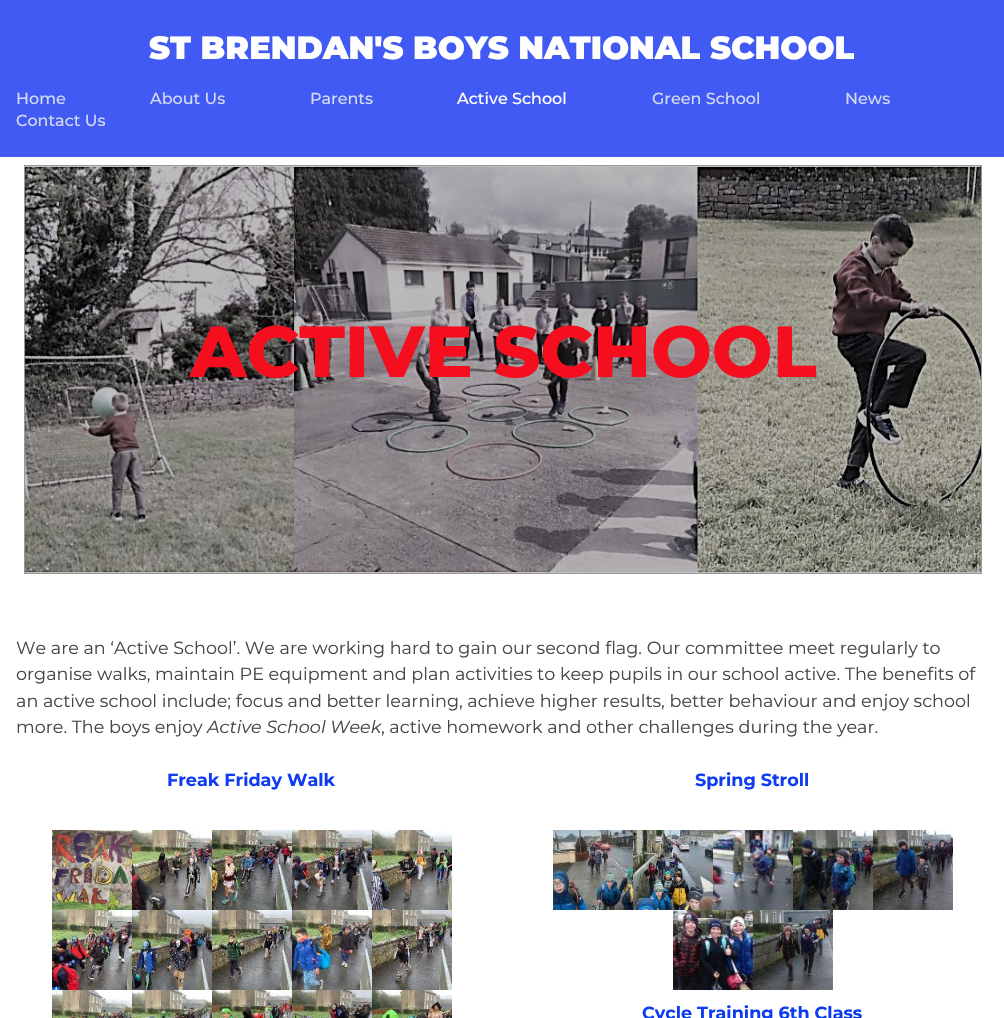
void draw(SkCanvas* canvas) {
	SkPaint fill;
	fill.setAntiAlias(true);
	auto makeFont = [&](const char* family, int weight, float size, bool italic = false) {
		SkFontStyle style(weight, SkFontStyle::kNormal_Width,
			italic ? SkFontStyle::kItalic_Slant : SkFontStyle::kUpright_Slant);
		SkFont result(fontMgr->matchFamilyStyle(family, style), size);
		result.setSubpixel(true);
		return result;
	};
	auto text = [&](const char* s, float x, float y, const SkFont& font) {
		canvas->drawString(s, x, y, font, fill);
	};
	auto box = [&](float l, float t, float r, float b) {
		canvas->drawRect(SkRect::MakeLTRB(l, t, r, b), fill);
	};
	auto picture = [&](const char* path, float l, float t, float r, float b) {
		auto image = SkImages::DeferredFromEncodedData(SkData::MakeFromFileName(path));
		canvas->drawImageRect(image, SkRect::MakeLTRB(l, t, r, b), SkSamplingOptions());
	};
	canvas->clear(0xFFFFFFFF);
	fill.setColor(0xFF405AF3);
	box(0, 0, 1004, 157);
	fill.setStyle(SkPaint::kStroke_Style);
	fill.setStrokeWidth(1);
	fill.setColor(0xFF999999);
	canvas->drawRect(SkRect::MakeLTRB(24.5f, 165.5f, 981.5f, 573.5f), fill);
	picture("image0.png", 25, 166, 981, 573);
	picture("image1.png", 52, 830, 132, 910);
	picture("image2.png", 132, 830, 212, 910);
	picture("image3.png", 212, 830, 292, 910);
	picture("image4.png", 292, 830, 372, 910);
	picture("image5.png", 372, 830, 452, 910);
	picture("image6.png", 52, 910, 132, 990);
	picture("image7.png", 132, 910, 212, 990);
	picture("image8.png", 212, 910, 292, 990);
	picture("image9.png", 292, 910, 372, 990);
	picture("image10.png", 372, 910, 452, 990);
	picture("image11.png", 52, 990, 132, 1018);
	picture("image12.png", 132, 990, 212, 1018);
	picture("image13.png", 212, 990, 292, 1018);
	picture("image14.png", 292, 990, 372, 1018);
	picture("image15.png", 372, 990, 452, 1018);
	picture("image16.png", 553, 830, 633, 910);
	picture("image17.png", 633, 830, 713, 910);
	picture("image18.png", 713, 830, 793, 910);
	picture("image19.png", 793, 830, 873, 910);
	picture("image20.png", 873, 830, 953, 910);
	picture("image21.png", 673, 910, 753, 990);
	picture("image22.png", 753, 910, 833, 990);
	auto font1 = makeFont("Montserrat", 900, 32);
	fill.setStyle(SkPaint::kFill_Style);
	fill.setColor(0xFFFFFFFF);
	text("ST BRENDAN'S BOYS NATIONAL SCHOOL", 149, 59, font1);
	auto font2 = makeFont("Montserrat", 500, 16);
	fill.setColor(0xFFD3D9F2);
	text("Home", 16, 104, font2);
	text("About Us", 150, 104, font2);
	text("Parents", 310, 104, font2);
	fill.setColor(0xFFFFFFFF);
	text("Active School", 457, 104, font2);
	fill.setColor(0xFFD3D9F2);
	text("Green School", 652, 104, font2);
	text("News", 845, 104, font2);
	text("Contact Us", 16, 126, font2);
	auto font3 = makeFont("Montserrat", 800, 72);
	fill.setColor(0xFFF50E1E);
	text("ACTIVE SCHOOL", 190, 377, font3);
	auto font4 = makeFont("Montserrat", 400, 17.6f);
	fill.setColor(0xFF464646);
	text("We are an ‘Active School’. We are working hard to gain our second flag. Our committee meet regularly to", 16, 654, font4);
	text("organise walks, maintain PE equipment and plan activities to keep pupils in our school active. The benefits of", 16, 680, font4);
	text("an active school include; focus and better learning, achieve higher results, better behaviour and enjoy school", 16, 707, font4);
	text("more. The boys enjoy", 16, 733, font4);
	auto font5 = makeFont("Montserrat", 400, 17.6f, true);
	text("Active School Week", 207, 733, font5);
	text(", active homework and other challenges during the year.", 381, 733, font4);
	auto font6 = makeFont("Montserrat", 700, 17.6f);
	fill.setColor(0xFF0E3CF2);
	text("Freak Friday Walk", 167, 786, font6);
	text("Spring Stroll", 695, 786, font6);
	text("Cycle Training 6th Class", 642, 1019, font6);
}
